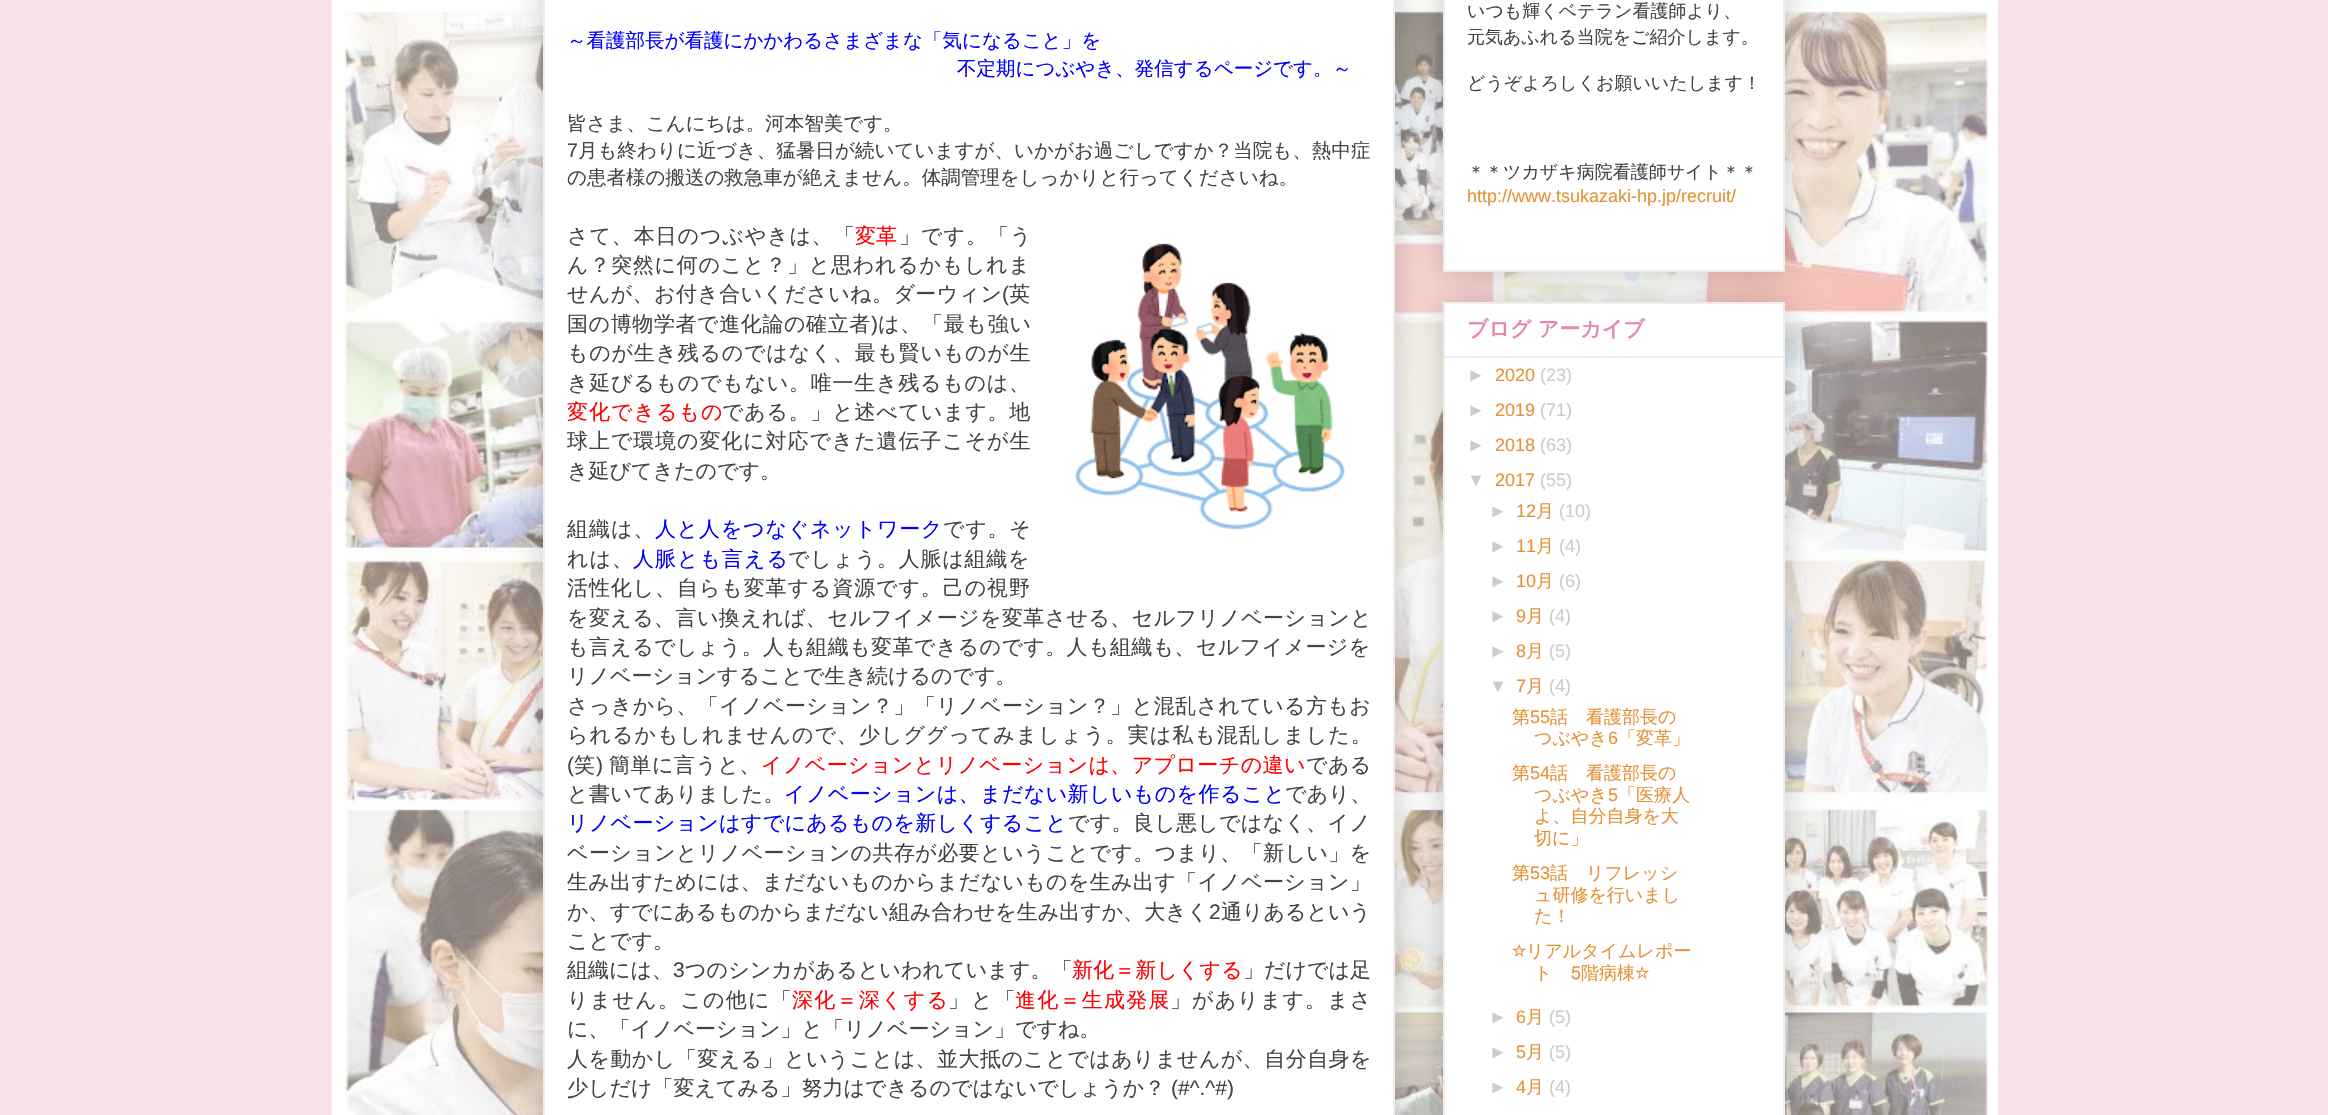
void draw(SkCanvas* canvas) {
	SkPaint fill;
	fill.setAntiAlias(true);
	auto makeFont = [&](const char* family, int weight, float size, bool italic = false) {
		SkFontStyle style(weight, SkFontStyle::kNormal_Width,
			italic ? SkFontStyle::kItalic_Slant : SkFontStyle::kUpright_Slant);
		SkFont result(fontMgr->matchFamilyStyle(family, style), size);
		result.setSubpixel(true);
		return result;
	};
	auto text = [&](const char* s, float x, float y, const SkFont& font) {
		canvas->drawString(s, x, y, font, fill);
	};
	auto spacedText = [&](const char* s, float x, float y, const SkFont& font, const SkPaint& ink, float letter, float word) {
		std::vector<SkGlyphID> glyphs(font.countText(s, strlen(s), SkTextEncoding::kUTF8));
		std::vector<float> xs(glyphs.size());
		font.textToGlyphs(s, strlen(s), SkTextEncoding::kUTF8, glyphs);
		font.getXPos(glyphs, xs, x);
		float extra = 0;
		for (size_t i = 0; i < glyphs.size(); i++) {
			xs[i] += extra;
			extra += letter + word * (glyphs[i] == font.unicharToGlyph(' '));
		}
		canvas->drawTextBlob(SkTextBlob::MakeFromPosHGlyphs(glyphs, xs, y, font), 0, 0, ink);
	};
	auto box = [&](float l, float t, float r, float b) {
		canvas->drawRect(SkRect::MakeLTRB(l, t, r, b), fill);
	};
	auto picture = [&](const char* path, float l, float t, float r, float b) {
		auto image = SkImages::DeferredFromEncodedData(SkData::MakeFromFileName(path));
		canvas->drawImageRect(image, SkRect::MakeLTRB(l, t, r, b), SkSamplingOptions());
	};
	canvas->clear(0xFFF6E1EA);
	picture("image0.png", 331, 0, 1999, 1115);
	fill.setColor(0x33000000);
	fill.setMaskFilter(SkMaskFilter::MakeBlur(kNormal_SkBlurStyle, 15));
	canvas->drawRect(SkRect::MakeLTRB(543, -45, 1395, 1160), fill);
	fill.setMaskFilter(nullptr);
	fill.setColor(0xFFFFFFFF);
	canvas->drawRect(SkRect::MakeLTRB(544, -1, 1394, 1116), fill);
	fill.setStyle(SkPaint::kStroke_Style);
	fill.setStrokeWidth(2);
	fill.setColor(0xFFEEEEEE);
	canvas->drawRect(SkRect::MakeLTRB(544, -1, 1394, 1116), fill);
	picture("image1.png", 1075, 243, 1345, 530);
	fill.setStyle(SkPaint::kFill_Style);
	fill.setColor(0x33000000);
	fill.setMaskFilter(SkMaskFilter::MakeBlur(kNormal_SkBlurStyle, 15));
	canvas->drawRect(SkRect::MakeLTRB(1443, -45, 1785, 272), fill);
	fill.setMaskFilter(nullptr);
	fill.setColor(0xFFFFFFFF);
	canvas->drawRect(SkRect::MakeLTRB(1444, -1, 1784, 271), fill);
	fill.setStyle(SkPaint::kStroke_Style);
	fill.setColor(0xFFEEEEEE);
	canvas->drawRect(SkRect::MakeLTRB(1444, -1, 1784, 271), fill);
	fill.setStyle(SkPaint::kFill_Style);
	fill.setColor(0x33000000);
	fill.setMaskFilter(SkMaskFilter::MakeBlur(kNormal_SkBlurStyle, 15));
	canvas->drawRect(SkRect::MakeLTRB(1443, 302, 1785, 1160), fill);
	fill.setMaskFilter(nullptr);
	fill.setColor(0xFFFFFFFF);
	canvas->drawRect(SkRect::MakeLTRB(1444, 303, 1784, 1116), fill);
	fill.setStyle(SkPaint::kStroke_Style);
	fill.setColor(0xFFEEEEEE);
	canvas->drawRect(SkRect::MakeLTRB(1444, 303, 1784, 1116), fill);
	fill.setStyle(SkPaint::kFill_Style);
	box(1445, 356, 1784, 358);
	auto font1 = makeFont("WenQuanYi Zen Hei", 500, 19.5f);
	fill.setColor(0xFF0000FF);
	text("～看護部長が看護にかかわるさまざまな「気になること」を", 567, 47, font1);
	text("不定期につぶやき、発信するページです。～", 957, 75, font1);
	fill.setColor(0xFF444444);
	text("皆さま、こんにちは。河本智美です。", 567, 130, font1);
	auto font2 = makeFont("Liberation Sans", 400, 19.5f);
	text("7", 567, 157, font2);
	spacedText("月も終わりに近づき、猛暑日が続いていますが、いかがお過ごしですか？当院も、熱中症", 578, 157, font1, fill, 0.05f, 0);
	text("の患者様の搬送の救急車が絶えません。体調管理をしっかりと行ってくださいね。", 567, 184, font1);
	auto font3 = makeFont("WenQuanYi Zen Hei", 500, 21);
	spacedText("さて、本日のつぶやきは、「", 567, 243, font3, fill, 0.9f, 0);
	fill.setColor(0xFFFF0000);
	text("変革", 855, 243, font3);
	fill.setColor(0xFF444444);
	spacedText("」です。「う", 899, 243, font3, fill, 1, 0);
	spacedText("ん？突然に何のこと？」と思われるかもしれま", 567, 272, font3, fill, 0.75f, 0);
	spacedText("せんが、お付き合いくださいね。ダーウィン", 567, 301, font3, fill, 0.4f, 0);
	auto font4 = makeFont("Liberation Sans", 400, 21);
	text("(", 1002, 301, font4);
	text("英", 1009, 301, font3);
	spacedText("国の博物学者で進化論の確立者", 567, 331, font3, fill, 0.6f, 0);
	text(")", 871, 331, font4);
	spacedText("は、「最も強い", 878, 331, font3, fill, 0.75f, 0);
	spacedText("ものが生き残るのではなく、最も賢いものが生", 567, 360, font3, fill, 0.75f, 0);
	spacedText("き延びるものでもない。唯一生き残るものは、", 567, 390, font3, fill, 0.75f, 0);
	fill.setColor(0xFFFF0000);
	spacedText("変化できるもの", 567, 419, font3, fill, 1, 0);
	fill.setColor(0xFF444444);
	spacedText("である。」と述べています。地", 722, 419, font3, fill, 0.75f, 0);
	spacedText("球上で環境の変化に対応できた遺伝子こそが生", 567, 448, font3, fill, 0.9f, 0);
	text("き延びてきたのです。", 567, 478, font3);
	spacedText("組織は、", 567, 536, font3, fill, 1, 0);
	fill.setColor(0xFF0000FF);
	spacedText("人と人をつなぐネットワーク", 655, 536, font3, fill, 0.8f, 0);
	fill.setColor(0xFF444444);
	spacedText("です。そ", 943, 536, font3, fill, 0.75f, 0);
	spacedText("れは、", 567, 566, font3, fill, 1, 0);
	fill.setColor(0xFF0000FF);
	spacedText("人脈とも言える", 633, 566, font3, fill, 1, 0);
	fill.setColor(0xFF444444);
	spacedText("でしょう。人脈は組織を", 788, 566, font3, fill, 0.75f, 0);
	spacedText("活性化し、自らも変革する資源です。己の視野", 567, 595, font3, fill, 0.9f, 0);
	spacedText("を変える、言い換えれば、セルフイメージを変革させる、セルフリノベーションと", 567, 625, font3, fill, 0.4f, 0);
	spacedText("も言えるでしょう。人も組織も変革できるのです。人も組織も、セルフイメージを", 567, 654, font3, fill, 0.4f, 0);
	text("リノベーションすることで生き続けるのです。", 567, 683, font3);
	spacedText("さっきから、「イノベーション？」「リノベーション？」と混乱されている方もお", 567, 713, font3, fill, 0.4f, 0);
	spacedText("られるかもしれませんので、少しググってみましょう。実は私も混乱しました。", 567, 742, font3, fill, 1, 0);
	text("(", 567, 772, font4);
	text("笑", 574, 772, font3);
	text(")", 596, 772, font4);
	spacedText("簡単に言うと、", 609, 772, font3, fill, 0.5f, 0);
	fill.setColor(0xFFFF0000);
	spacedText("イノベーションとリノベーションは、アプローチの違い", 761, 772, font3, fill, 0.4f, 0);
	fill.setColor(0xFF444444);
	spacedText("である", 1306, 772, font3, fill, 0.4f, 0);
	spacedText("と書いてありました。", 567, 801, font3, fill, 0.4f, 0);
	fill.setColor(0xFF0000FF);
	spacedText("イノベーションは、まだない新しいものを作ること", 784, 801, font3, fill, 0.4f, 0);
	fill.setColor(0xFF444444);
	spacedText("であり、", 1285, 801, font3, fill, 0.3f, 0);
	fill.setColor(0xFF0000FF);
	spacedText("リノベーションはすでにあるものを新しくすること", 567, 830, font3, fill, 0.3f, 0);
	fill.setColor(0xFF444444);
	spacedText("です。良し悪しではなく、イノ", 1068, 830, font3, fill, 0.3f, 0);
	spacedText("ベーションとリノベーションの共存が必要ということです。つまり、「新しい」を", 567, 860, font3, fill, 0.4f, 0);
	spacedText("生み出すためには、まだないものからまだないものを生み出す「イノベーション」", 567, 889, font3, fill, 0.35f, 0);
	text("か、すでにあるものからまだない組み合わせを生み出すか、大きく", 567, 919, font3);
	text("2", 1209, 919, font4);
	text("通りあるという", 1221, 919, font3);
	text("ことです。", 567, 948, font3);
	text("組織には、", 567, 977, font3);
	text("3", 673, 977, font4);
	spacedText("つのシンカがあるといわれています。「", 685, 977, font3, fill, 0.1f, 0);
	fill.setColor(0xFFFF0000);
	spacedText("新化＝新しくする", 1072, 977, font3, fill, 0.1f, 0);
	fill.setColor(0xFF444444);
	text("」だけでは足", 1243, 977, font3);
	spacedText("りません。この他に「", 567, 1007, font3, fill, 1.25f, 0);
	fill.setColor(0xFFFF0000);
	spacedText("深化＝深くする", 792, 1007, font3, fill, 1.25f, 0);
	fill.setColor(0xFF444444);
	spacedText("」と「", 948, 1007, font3, fill, 2, 0);
	fill.setColor(0xFFFF0000);
	spacedText("進化＝生成発展", 1015, 1007, font3, fill, 1.25f, 0);
	fill.setColor(0xFF444444);
	spacedText("」があります。まさ", 1170, 1007, font3, fill, 1.1f, 0);
	text("に、「イノベーション」と「リノベーション」ですね。", 567, 1036, font3);
	spacedText("人を動かし「変える」ということは、並大抵のことではありませんが、自分自身を", 567, 1066, font3, fill, 0.45f, 0);
	text("少しだけ「変えてみる」努力はできるのではないでしょうか？", 567, 1095, font3);
	text("(#^.^#)", 1171, 1095, font4);
	auto font5 = makeFont("WenQuanYi Zen Hei", 500, 18);
	text("いつも輝くベテラン看護師より、", 1467, 17, font5);
	text("元気あふれる当院をご紹介します。", 1467, 43, font5);
	text("どうぞよろしくお願いいたします！", 1467, 89, font5);
	text("＊＊ツカザキ病院看護師サイト＊＊", 1467, 178, font5);
	auto font6 = makeFont("Liberation Sans", 400, 18);
	fill.setColor(0xFFE69138);
	text("http://www.tsukazaki-hp.jp/recruit/", 1467, 202, font6);
	auto font7 = makeFont("WenQuanYi Zen Hei", 700, 21);
	fill.setColor(0xFFE787AB);
	text("ブログ アーカイブ", 1467, 336, font7);
	fill.setColor(0xFFCCCCCC);
	text("►", 1467, 381, font6);
	fill.setColor(0xFFE69138);
	text("2020", 1495, 381, font6);
	fill.setColor(0xFFCCCCCC);
	text("(23)", 1540, 381, font6);
	text("►", 1467, 416, font6);
	fill.setColor(0xFFE69138);
	text("2019", 1495, 416, font6);
	fill.setColor(0xFFCCCCCC);
	text("(71)", 1540, 416, font6);
	text("►", 1467, 451, font6);
	fill.setColor(0xFFE69138);
	text("2018", 1495, 451, font6);
	fill.setColor(0xFFCCCCCC);
	text("(63)", 1540, 451, font6);
	text("▼", 1467, 486, font6);
	fill.setColor(0xFFE69138);
	text("2017", 1495, 486, font6);
	fill.setColor(0xFFCCCCCC);
	text("(55)", 1540, 486, font6);
	text("►", 1489, 517, font6);
	fill.setColor(0xFFE69138);
	text("12", 1516, 517, font6);
	text("月", 1536, 517, font5);
	fill.setColor(0xFFCCCCCC);
	text("(10)", 1559, 517, font6);
	text("►", 1489, 552, font6);
	fill.setColor(0xFFE69138);
	text("11", 1516, 552, font6);
	text("月", 1536, 552, font5);
	fill.setColor(0xFFCCCCCC);
	text("(4)", 1559, 552, font6);
	text("►", 1489, 587, font6);
	fill.setColor(0xFFE69138);
	text("10", 1516, 587, font6);
	text("月", 1536, 587, font5);
	fill.setColor(0xFFCCCCCC);
	text("(6)", 1559, 587, font6);
	text("►", 1489, 622, font6);
	fill.setColor(0xFFE69138);
	text("9", 1516, 622, font6);
	text("月", 1526, 622, font5);
	fill.setColor(0xFFCCCCCC);
	text("(4)", 1549, 622, font6);
	text("►", 1489, 657, font6);
	fill.setColor(0xFFE69138);
	text("8", 1516, 657, font6);
	text("月", 1526, 657, font5);
	fill.setColor(0xFFCCCCCC);
	text("(5)", 1549, 657, font6);
	text("▼", 1489, 692, font6);
	fill.setColor(0xFFE69138);
	text("7", 1516, 692, font6);
	text("月", 1526, 692, font5);
	fill.setColor(0xFFCCCCCC);
	text("(4)", 1549, 692, font6);
	fill.setColor(0xFFE69138);
	text("第", 1512, 723, font5);
	text("55", 1530, 723, font6);
	text("話　看護部長の", 1550, 723, font5);
	text("つぶやき", 1534, 744, font5);
	text("6", 1608, 744, font6);
	text("「変革」", 1618, 744, font5);
	text("第", 1512, 779, font5);
	text("54", 1530, 779, font6);
	text("話　看護部長の", 1550, 779, font5);
	text("つぶやき", 1534, 801, font5);
	text("5", 1608, 801, font6);
	text("「医療人", 1618, 801, font5);
	text("よ、自分自身を大", 1534, 822, font5);
	text("切に」", 1534, 844, font5);
	text("第", 1512, 879, font5);
	text("53", 1530, 879, font6);
	text("話　リフレッシ", 1550, 879, font5);
	text("ュ研修を行いまし", 1534, 901, font5);
	text("た！", 1534, 922, font5);
	auto font8 = makeFont("FreeSans", 400, 18);
	text("☆", 1512, 957, font8);
	text("リアルタイムレポー", 1526, 957, font5);
	text("ト", 1534, 979, font5);
	text("5", 1571, 979, font8);
	text("階病棟", 1581, 979, font5);
	text("☆", 1635, 979, font8);
	fill.setColor(0xFFCCCCCC);
	text("►", 1489, 1023, font6);
	fill.setColor(0xFFE69138);
	text("6", 1516, 1023, font6);
	text("月", 1526, 1023, font5);
	fill.setColor(0xFFCCCCCC);
	text("(5)", 1549, 1023, font6);
	text("►", 1489, 1058, font6);
	fill.setColor(0xFFE69138);
	text("5", 1516, 1058, font6);
	text("月", 1526, 1058, font5);
	fill.setColor(0xFFCCCCCC);
	text("(5)", 1549, 1058, font6);
	text("►", 1489, 1093, font6);
	fill.setColor(0xFFE69138);
	text("4", 1516, 1093, font6);
	text("月", 1526, 1093, font5);
	fill.setColor(0xFFCCCCCC);
	text("(4)", 1549, 1093, font6);
}
